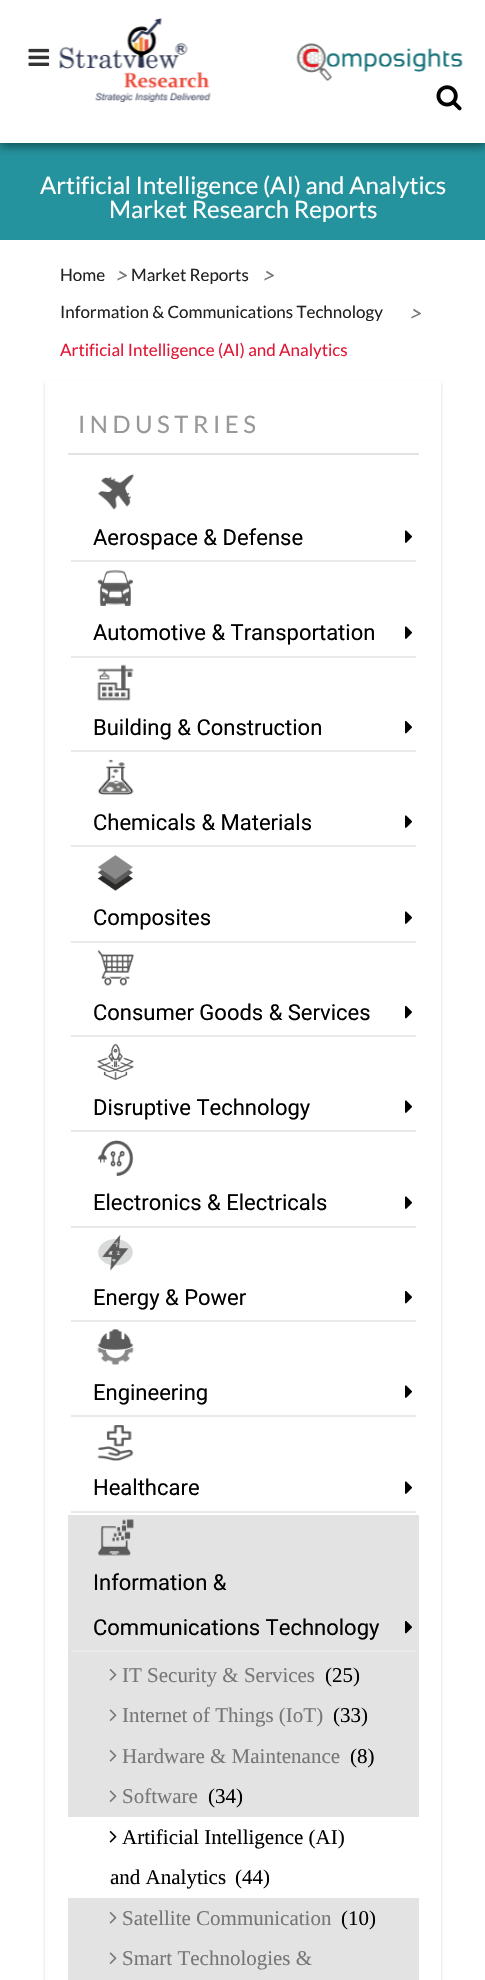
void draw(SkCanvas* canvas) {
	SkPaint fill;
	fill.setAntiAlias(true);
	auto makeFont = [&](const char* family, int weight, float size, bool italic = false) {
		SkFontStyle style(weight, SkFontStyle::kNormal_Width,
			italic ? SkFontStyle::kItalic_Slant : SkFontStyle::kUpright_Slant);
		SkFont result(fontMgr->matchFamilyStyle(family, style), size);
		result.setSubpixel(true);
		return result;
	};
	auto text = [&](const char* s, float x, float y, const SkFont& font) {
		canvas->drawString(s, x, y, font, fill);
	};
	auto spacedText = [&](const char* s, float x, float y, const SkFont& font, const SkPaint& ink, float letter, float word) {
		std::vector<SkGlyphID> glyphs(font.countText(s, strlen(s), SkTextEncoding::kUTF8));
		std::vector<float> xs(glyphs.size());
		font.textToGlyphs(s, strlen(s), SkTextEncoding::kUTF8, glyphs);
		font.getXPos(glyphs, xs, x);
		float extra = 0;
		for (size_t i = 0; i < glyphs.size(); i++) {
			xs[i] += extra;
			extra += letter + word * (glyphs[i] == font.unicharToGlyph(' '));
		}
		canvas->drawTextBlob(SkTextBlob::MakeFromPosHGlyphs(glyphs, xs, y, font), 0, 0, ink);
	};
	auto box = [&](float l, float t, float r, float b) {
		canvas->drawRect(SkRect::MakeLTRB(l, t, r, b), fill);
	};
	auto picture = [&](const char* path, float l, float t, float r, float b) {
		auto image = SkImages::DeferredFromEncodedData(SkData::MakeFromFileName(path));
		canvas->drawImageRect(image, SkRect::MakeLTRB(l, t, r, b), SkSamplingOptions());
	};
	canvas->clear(0xFFFFFFFF);
	fill.setColor(0xFF24939D);
	box(0, 143, 485, 240);
	fill.setColor(0x80000000);
	fill.setMaskFilter(SkMaskFilter::MakeBlur(kNormal_SkBlurStyle, 5));
	canvas->drawRect(SkRect::MakeLTRB(0, 3, 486, 146), fill);
	fill.setMaskFilter(nullptr);
	fill.setColor(0xFFFFFFFF);
	box(0, 0, 485, 143);
	picture("image0.png", 28, 48, 50, 66);
	picture("image1.png", 59, 18, 211, 102);
	picture("image2.png", 296, 43, 463, 81);
	picture("image3.png", 436, 85, 462, 111);
	canvas->save();
	canvas->clipPath(SkPathBuilder(SkPathFillType::kEvenOdd).moveTo(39, 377).lineTo(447, 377).lineTo(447, 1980).lineTo(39, 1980).close().moveTo(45, 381).lineTo(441, 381).lineTo(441, 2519).lineTo(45, 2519).close().detach(), true);
	fill.setColor(0x26000000);
	fill.setMaskFilter(SkMaskFilter::MakeBlur(kNormal_SkBlurStyle, 1.5f));
	canvas->drawRect(SkRect::MakeLTRB(45, 383, 441, 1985), fill);
	fill.setMaskFilter(nullptr);
	canvas->restore();
	fill.setColor(0xFFE3E3E3);
	box(68, 453, 419, 455);
	fill.setColor(0xFFE9E9E9);
	box(71, 560, 416, 562);
	picture("image4.png", 97, 474, 134, 510);
	picture("image5.png", 405, 530, 412, 543);
	box(71, 656, 416, 658);
	picture("image6.png", 97, 570, 133, 606);
	picture("image5.png", 405, 626, 412, 639);
	box(71, 750, 416, 752);
	picture("image7.png", 97, 664, 134, 701);
	picture("image8.png", 405, 720, 412, 734);
	box(71, 845, 416, 847);
	picture("image9.png", 98, 759, 134, 795);
	picture("image5.png", 405, 815, 412, 828);
	box(71, 941, 416, 943);
	picture("image10.png", 97, 855, 133, 891);
	picture("image5.png", 405, 911, 412, 924);
	box(71, 1035, 416, 1037);
	picture("image11.png", 97, 950, 134, 986);
	picture("image8.png", 405, 1005, 412, 1019);
	box(71, 1130, 416, 1132);
	picture("image12.png", 97, 1044, 134, 1080);
	picture("image5.png", 405, 1100, 412, 1113);
	box(71, 1226, 416, 1228);
	picture("image13.png", 97, 1140, 134, 1176);
	picture("image5.png", 405, 1196, 412, 1209);
	box(71, 1320, 416, 1322);
	picture("image14.png", 97, 1234, 133, 1271);
	picture("image8.png", 405, 1290, 412, 1304);
	box(71, 1415, 416, 1417);
	picture("image15.png", 97, 1329, 134, 1365);
	picture("image5.png", 405, 1385, 412, 1398);
	box(71, 1511, 416, 1513);
	picture("image16.png", 97, 1425, 134, 1461);
	picture("image5.png", 405, 1481, 412, 1494);
	fill.setColor(0xFFE3E3E3);
	box(68, 1515, 419, 1980);
	fill.setColor(0xFFE9E9E9);
	box(71, 1650, 416, 1652);
	picture("image17.png", 97, 1519, 134, 1556);
	picture("image18.png", 405, 1620, 412, 1634);
	picture("image19.png", 109, 1669, 117, 1681);
	picture("image20.png", 109, 1709, 117, 1721);
	picture("image19.png", 109, 1750, 117, 1762);
	picture("image20.png", 109, 1790, 117, 1802);
	fill.setColor(0xFFFFFFFF);
	box(68, 1817, 419, 1898);
	picture("image21.png", 109, 1831, 117, 1843);
	picture("image19.png", 109, 1912, 117, 1924);
	picture("image20.png", 109, 1952, 117, 1964);
	auto font1 = makeFont("Lato", 400, 24);
	text("Artificial Intelligence (AI) and Analytics", 40, 194, font1);
	text("Market Research Reports", 109, 218, font1);
	auto font2 = makeFont("Lato", 400, 17);
	fill.setColor(0xFF222222);
	text("Home", 60, 281, font2);
	auto font3 = makeFont("Lato", 400, 22, true);
	fill.setColor(0xFF777777);
	text(">", 114, 283, font3);
	fill.setColor(0xFF222222);
	text("Market Reports", 131, 281, font2);
	fill.setColor(0xFF777777);
	text(">", 261, 283, font3);
	fill.setColor(0xFF222222);
	text("Information & Communications Technology", 60, 318, font2);
	fill.setColor(0xFF777777);
	text(">", 408, 321, font3);
	fill.setColor(0xFFE31837);
	text("Artificial Intelligence (AI) and Analytics", 60, 356, font2);
	fill.setColor(0xFF989898);
	spacedText("INDUSTRIES", 78, 433, font1, fill, 4.5f, 0);
	auto font4 = makeFont("Roboto", 400, 22);
	fill.setColor(0xFF000000);
	text("Aerospace & Defense", 93, 545, font4);
	text("Automotive & Transportation", 93, 640, font4);
	text("Building & Construction", 93, 735, font4);
	text("Chemicals & Materials", 93, 830, font4);
	text("Composites", 93, 925, font4);
	text("Consumer Goods & Services", 93, 1020, font4);
	text("Disruptive Technology", 93, 1115, font4);
	text("Electronics & Electricals", 93, 1210, font4);
	text("Energy & Power", 93, 1305, font4);
	text("Engineering", 93, 1400, font4);
	text("Healthcare", 93, 1495, font4);
	text("Information &", 93, 1590, font4);
	text("Communications Technology", 93, 1635, font4);
	auto font5 = makeFont("Liberation Serif", 400, 21);
	fill.setColor(0xFF777777);
	text("IT Security & Services", 122, 1682, font5);
	fill.setColor(0xFF000000);
	text("(25)", 325, 1682, font5);
	fill.setColor(0xFF777777);
	text("Internet of Things (IoT)", 122, 1722, font5);
	fill.setColor(0xFF000000);
	text("(33)", 333, 1722, font5);
	fill.setColor(0xFF777777);
	text("Hardware & Maintenance", 122, 1763, font5);
	fill.setColor(0xFF000000);
	text("(8)", 350, 1763, font5);
	fill.setColor(0xFF777777);
	text("Software", 122, 1803, font5);
	fill.setColor(0xFF000000);
	text("(34)", 208, 1803, font5);
	text("Artificial Intelligence (AI)", 122, 1844, font5);
	text("and Analytics", 110, 1884, font5);
	text("(44)", 235, 1884, font5);
	fill.setColor(0xFF777777);
	text("Satellite Communication", 122, 1925, font5);
	fill.setColor(0xFF000000);
	text("(10)", 341, 1925, font5);
	fill.setColor(0xFF777777);
	text("Smart Technologies &", 122, 1965, font5);
}
